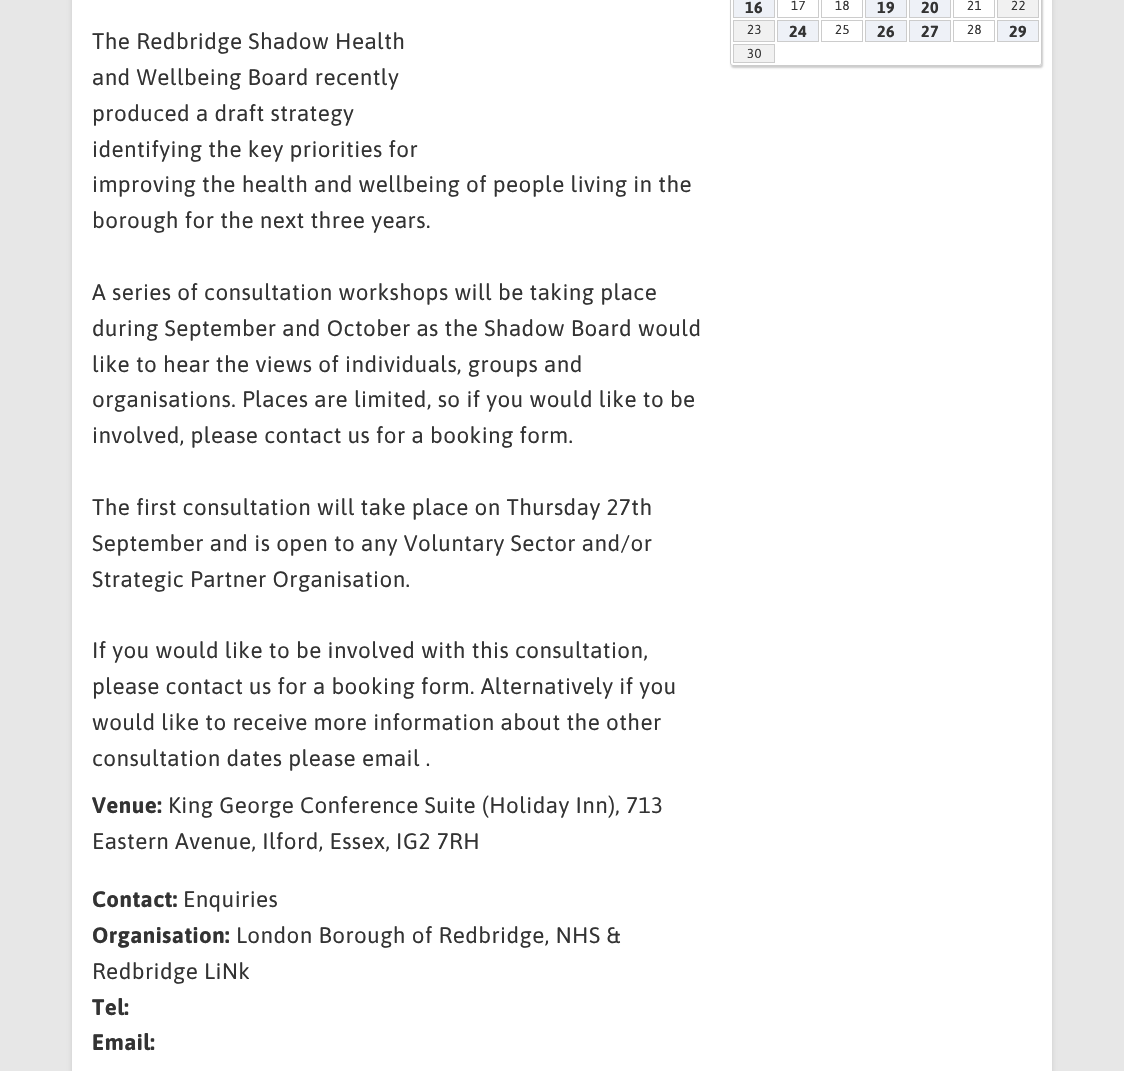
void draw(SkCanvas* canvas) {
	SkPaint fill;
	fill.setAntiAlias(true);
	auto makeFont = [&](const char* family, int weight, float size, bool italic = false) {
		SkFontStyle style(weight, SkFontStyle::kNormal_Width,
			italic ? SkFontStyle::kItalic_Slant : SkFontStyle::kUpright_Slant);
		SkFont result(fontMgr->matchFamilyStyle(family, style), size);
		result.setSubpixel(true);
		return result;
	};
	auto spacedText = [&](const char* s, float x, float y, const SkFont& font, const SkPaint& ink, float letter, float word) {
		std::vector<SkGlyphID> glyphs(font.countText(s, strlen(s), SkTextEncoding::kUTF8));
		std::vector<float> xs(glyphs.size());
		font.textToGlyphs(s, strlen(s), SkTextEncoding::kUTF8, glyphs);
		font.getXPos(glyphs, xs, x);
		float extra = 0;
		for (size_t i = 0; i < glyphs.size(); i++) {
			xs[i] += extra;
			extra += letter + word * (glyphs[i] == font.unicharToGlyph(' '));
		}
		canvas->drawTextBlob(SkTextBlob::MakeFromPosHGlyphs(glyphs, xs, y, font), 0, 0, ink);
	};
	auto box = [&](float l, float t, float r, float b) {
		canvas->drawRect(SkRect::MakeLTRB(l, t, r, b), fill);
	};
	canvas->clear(0xFFE7E7E7);
	fill.setColor(0xFFCCCCCC);
	fill.setMaskFilter(SkMaskFilter::MakeBlur(kNormal_SkBlurStyle, 2.5f));
	canvas->drawRoundRect(SkRect::MakeLTRB(72, -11, 1052, 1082), 3, 3, fill);
	fill.setMaskFilter(nullptr);
	fill.setColor(0xFFFFFFFF);
	box(72, 0, 1052, 1071);
	canvas->save();
	canvas->clipPath(SkPathBuilder(SkPathFillType::kEvenOdd).moveTo(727, 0).lineTo(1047, 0).lineTo(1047, 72).lineTo(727, 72).close().moveTo(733, -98).lineTo(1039, -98).cubicTo(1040.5f, -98, 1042, -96.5f, 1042, -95).lineTo(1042, 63).cubicTo(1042, 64.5f, 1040.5f, 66, 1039, 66).lineTo(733, 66).cubicTo(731.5f, 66, 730, 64.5f, 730, 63).lineTo(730, -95).cubicTo(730, -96.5f, 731.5f, -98, 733, -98).close().detach(), true);
	fill.setColor(0xFFCCCCCC);
	fill.setMaskFilter(SkMaskFilter::MakeBlur(kNormal_SkBlurStyle, 1));
	canvas->drawRoundRect(SkRect::MakeLTRB(731, -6, 1043, 68), 3, 3, fill);
	fill.setMaskFilter(nullptr);
	canvas->restore();
	fill.setStyle(SkPaint::kStroke_Style);
	fill.setStrokeWidth(1);
	canvas->drawRoundRect(SkRect::MakeLTRB(730.5f, -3.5f, 1041.5f, 65.5f), 2.5f, 2.5f, fill);
	fill.setStyle(SkPaint::kFill_Style);
	fill.setColor(0xFFEEF1F7);
	canvas->drawRect(SkRect::MakeLTRB(733.5f, -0.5f, 774.5f, 17.5f), fill);
	fill.setStyle(SkPaint::kStroke_Style);
	fill.setColor(0xFFCCCCCC);
	canvas->drawRect(SkRect::MakeLTRB(733.5f, -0.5f, 774.5f, 17.5f), fill);
	canvas->drawRect(SkRect::MakeLTRB(777.5f, -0.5f, 818.5f, 17.5f), fill);
	canvas->drawRect(SkRect::MakeLTRB(821.5f, -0.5f, 862.5f, 17.5f), fill);
	fill.setStyle(SkPaint::kFill_Style);
	fill.setColor(0xFFEEF1F7);
	canvas->drawRect(SkRect::MakeLTRB(865.5f, -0.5f, 906.5f, 17.5f), fill);
	fill.setStyle(SkPaint::kStroke_Style);
	fill.setColor(0xFFCCCCCC);
	canvas->drawRect(SkRect::MakeLTRB(865.5f, -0.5f, 906.5f, 17.5f), fill);
	fill.setStyle(SkPaint::kFill_Style);
	fill.setColor(0xFFEEF1F7);
	canvas->drawRect(SkRect::MakeLTRB(909.5f, -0.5f, 950.5f, 17.5f), fill);
	fill.setStyle(SkPaint::kStroke_Style);
	fill.setColor(0xFFCCCCCC);
	canvas->drawRect(SkRect::MakeLTRB(909.5f, -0.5f, 950.5f, 17.5f), fill);
	canvas->drawRect(SkRect::MakeLTRB(953.5f, -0.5f, 994.5f, 17.5f), fill);
	fill.setStyle(SkPaint::kFill_Style);
	fill.setColor(0xFFF1F1F1);
	canvas->drawRect(SkRect::MakeLTRB(997.5f, -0.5f, 1038.5f, 17.5f), fill);
	fill.setStyle(SkPaint::kStroke_Style);
	fill.setColor(0xFFCCCCCC);
	canvas->drawRect(SkRect::MakeLTRB(997.5f, -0.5f, 1038.5f, 17.5f), fill);
	fill.setStyle(SkPaint::kFill_Style);
	fill.setColor(0xFFF1F1F1);
	canvas->drawRect(SkRect::MakeLTRB(733.5f, 20.5f, 774.5f, 41.5f), fill);
	fill.setStyle(SkPaint::kStroke_Style);
	fill.setColor(0xFFCCCCCC);
	canvas->drawRect(SkRect::MakeLTRB(733.5f, 20.5f, 774.5f, 41.5f), fill);
	fill.setStyle(SkPaint::kFill_Style);
	fill.setColor(0xFFEEF1F7);
	canvas->drawRect(SkRect::MakeLTRB(777.5f, 20.5f, 818.5f, 41.5f), fill);
	fill.setStyle(SkPaint::kStroke_Style);
	fill.setColor(0xFFCCCCCC);
	canvas->drawRect(SkRect::MakeLTRB(777.5f, 20.5f, 818.5f, 41.5f), fill);
	canvas->drawRect(SkRect::MakeLTRB(821.5f, 20.5f, 862.5f, 41.5f), fill);
	fill.setStyle(SkPaint::kFill_Style);
	fill.setColor(0xFFEEF1F7);
	canvas->drawRect(SkRect::MakeLTRB(865.5f, 20.5f, 906.5f, 41.5f), fill);
	fill.setStyle(SkPaint::kStroke_Style);
	fill.setColor(0xFFCCCCCC);
	canvas->drawRect(SkRect::MakeLTRB(865.5f, 20.5f, 906.5f, 41.5f), fill);
	fill.setStyle(SkPaint::kFill_Style);
	fill.setColor(0xFFEEF1F7);
	canvas->drawRect(SkRect::MakeLTRB(909.5f, 20.5f, 950.5f, 41.5f), fill);
	fill.setStyle(SkPaint::kStroke_Style);
	fill.setColor(0xFFCCCCCC);
	canvas->drawRect(SkRect::MakeLTRB(909.5f, 20.5f, 950.5f, 41.5f), fill);
	canvas->drawRect(SkRect::MakeLTRB(953.5f, 20.5f, 994.5f, 41.5f), fill);
	fill.setStyle(SkPaint::kFill_Style);
	fill.setColor(0xFFEEF1F7);
	canvas->drawRect(SkRect::MakeLTRB(997.5f, 20.5f, 1038.5f, 41.5f), fill);
	fill.setStyle(SkPaint::kStroke_Style);
	fill.setColor(0xFFCCCCCC);
	canvas->drawRect(SkRect::MakeLTRB(997.5f, 20.5f, 1038.5f, 41.5f), fill);
	fill.setStyle(SkPaint::kFill_Style);
	fill.setColor(0xFFF1F1F1);
	canvas->drawRect(SkRect::MakeLTRB(733.5f, 44.5f, 774.5f, 62.5f), fill);
	fill.setStyle(SkPaint::kStroke_Style);
	fill.setColor(0xFFCCCCCC);
	canvas->drawRect(SkRect::MakeLTRB(733.5f, 44.5f, 774.5f, 62.5f), fill);
	auto font1 = makeFont("Asap", 400, 22.4f);
	fill.setStyle(SkPaint::kFill_Style);
	fill.setColor(0xFF333333);
	spacedText("The Redbridge Shadow Health", 92, 49, font1, fill, 0.45f, 0);
	spacedText("and Wellbeing Board recently", 92, 85, font1, fill, 0.45f, 0);
	spacedText("produced a draft strategy", 92, 121, font1, fill, 0.45f, 0);
	spacedText("identifying the key priorities for", 92, 157, font1, fill, 0.45f, 0);
	spacedText("improving the health and wellbeing of people living in the", 92, 192, font1, fill, 0.45f, 0);
	spacedText("borough for the next three years.", 92, 228, font1, fill, 0.45f, 0);
	spacedText("A series of consultation workshops will be taking place", 92, 300, font1, fill, 0.45f, 0);
	spacedText("during September and October as the Shadow Board would", 92, 336, font1, fill, 0.45f, 0);
	spacedText("like to hear the views of individuals, groups and", 92, 372, font1, fill, 0.45f, 0);
	spacedText("organisations. Places are limited, so if you would like to be", 92, 407, font1, fill, 0.45f, 0);
	spacedText("involved, please contact us for a booking form.", 92, 443, font1, fill, 0.45f, 0);
	spacedText("The first consultation will take place on Thursday 27th", 92, 515, font1, fill, 0.45f, 0);
	spacedText("September and is open to any Voluntary Sector and/or", 92, 551, font1, fill, 0.45f, 0);
	spacedText("Strategic Partner Organisation.", 92, 587, font1, fill, 0.45f, 0);
	spacedText("If you would like to be involved with this consultation,", 92, 658, font1, fill, 0.45f, 0);
	spacedText("please contact us for a booking form. Alternatively if you", 92, 694, font1, fill, 0.45f, 0);
	spacedText("would like to receive more information about the other", 92, 730, font1, fill, 0.45f, 0);
	spacedText("consultation dates please email .", 92, 766, font1, fill, 0.45f, 0);
	auto font2 = makeFont("Asap", 700, 22.4f);
	spacedText("Venue:", 92, 813, font2, fill, 0.45f, 0);
	spacedText("King George Conference Suite (Holiday Inn), 713", 168, 813, font1, fill, 0.45f, 0);
	spacedText("Eastern Avenue, Ilford, Essex, IG2 7RH", 92, 849, font1, fill, 0.45f, 0);
	spacedText("Contact:", 92, 907, font2, fill, 0.45f, 0);
	spacedText("Enquiries", 183, 907, font1, fill, 0.45f, 0);
	spacedText("Organisation:", 92, 943, font2, fill, 0.45f, 0);
	spacedText("London Borough of Redbridge, NHS &", 236, 943, font1, fill, 0.45f, 0);
	spacedText("Redbridge LiNk", 92, 979, font1, fill, 0.45f, 0);
	spacedText("Tel:", 92, 1015, font2, fill, 0.45f, 0);
	spacedText("Email:", 92, 1050, font2, fill, 0.45f, 0);
	auto font3 = makeFont("Asap", 700, 16);
	spacedText("16", 745, 13, font3, fill, 0.45f, 0);
	auto font4 = makeFont("Asap", 400, 13);
	spacedText("17", 791, 10, font4, fill, 0.45f, 0);
	spacedText("18", 835, 10, font4, fill, 0.45f, 0);
	spacedText("19", 877, 13, font3, fill, 0.45f, 0);
	spacedText("20", 921, 13, font3, fill, 0.45f, 0);
	spacedText("21", 967, 10, font4, fill, 0.45f, 0);
	spacedText("22", 1011, 10, font4, fill, 0.45f, 0);
	spacedText("23", 747, 34, font4, fill, 0.45f, 0);
	spacedText("24", 789, 37, font3, fill, 0.45f, 0);
	spacedText("25", 835, 34, font4, fill, 0.45f, 0);
	spacedText("26", 877, 37, font3, fill, 0.45f, 0);
	spacedText("27", 921, 37, font3, fill, 0.45f, 0);
	spacedText("28", 967, 34, font4, fill, 0.45f, 0);
	spacedText("29", 1009, 37, font3, fill, 0.45f, 0);
	spacedText("30", 747, 58, font4, fill, 0.45f, 0);
}
